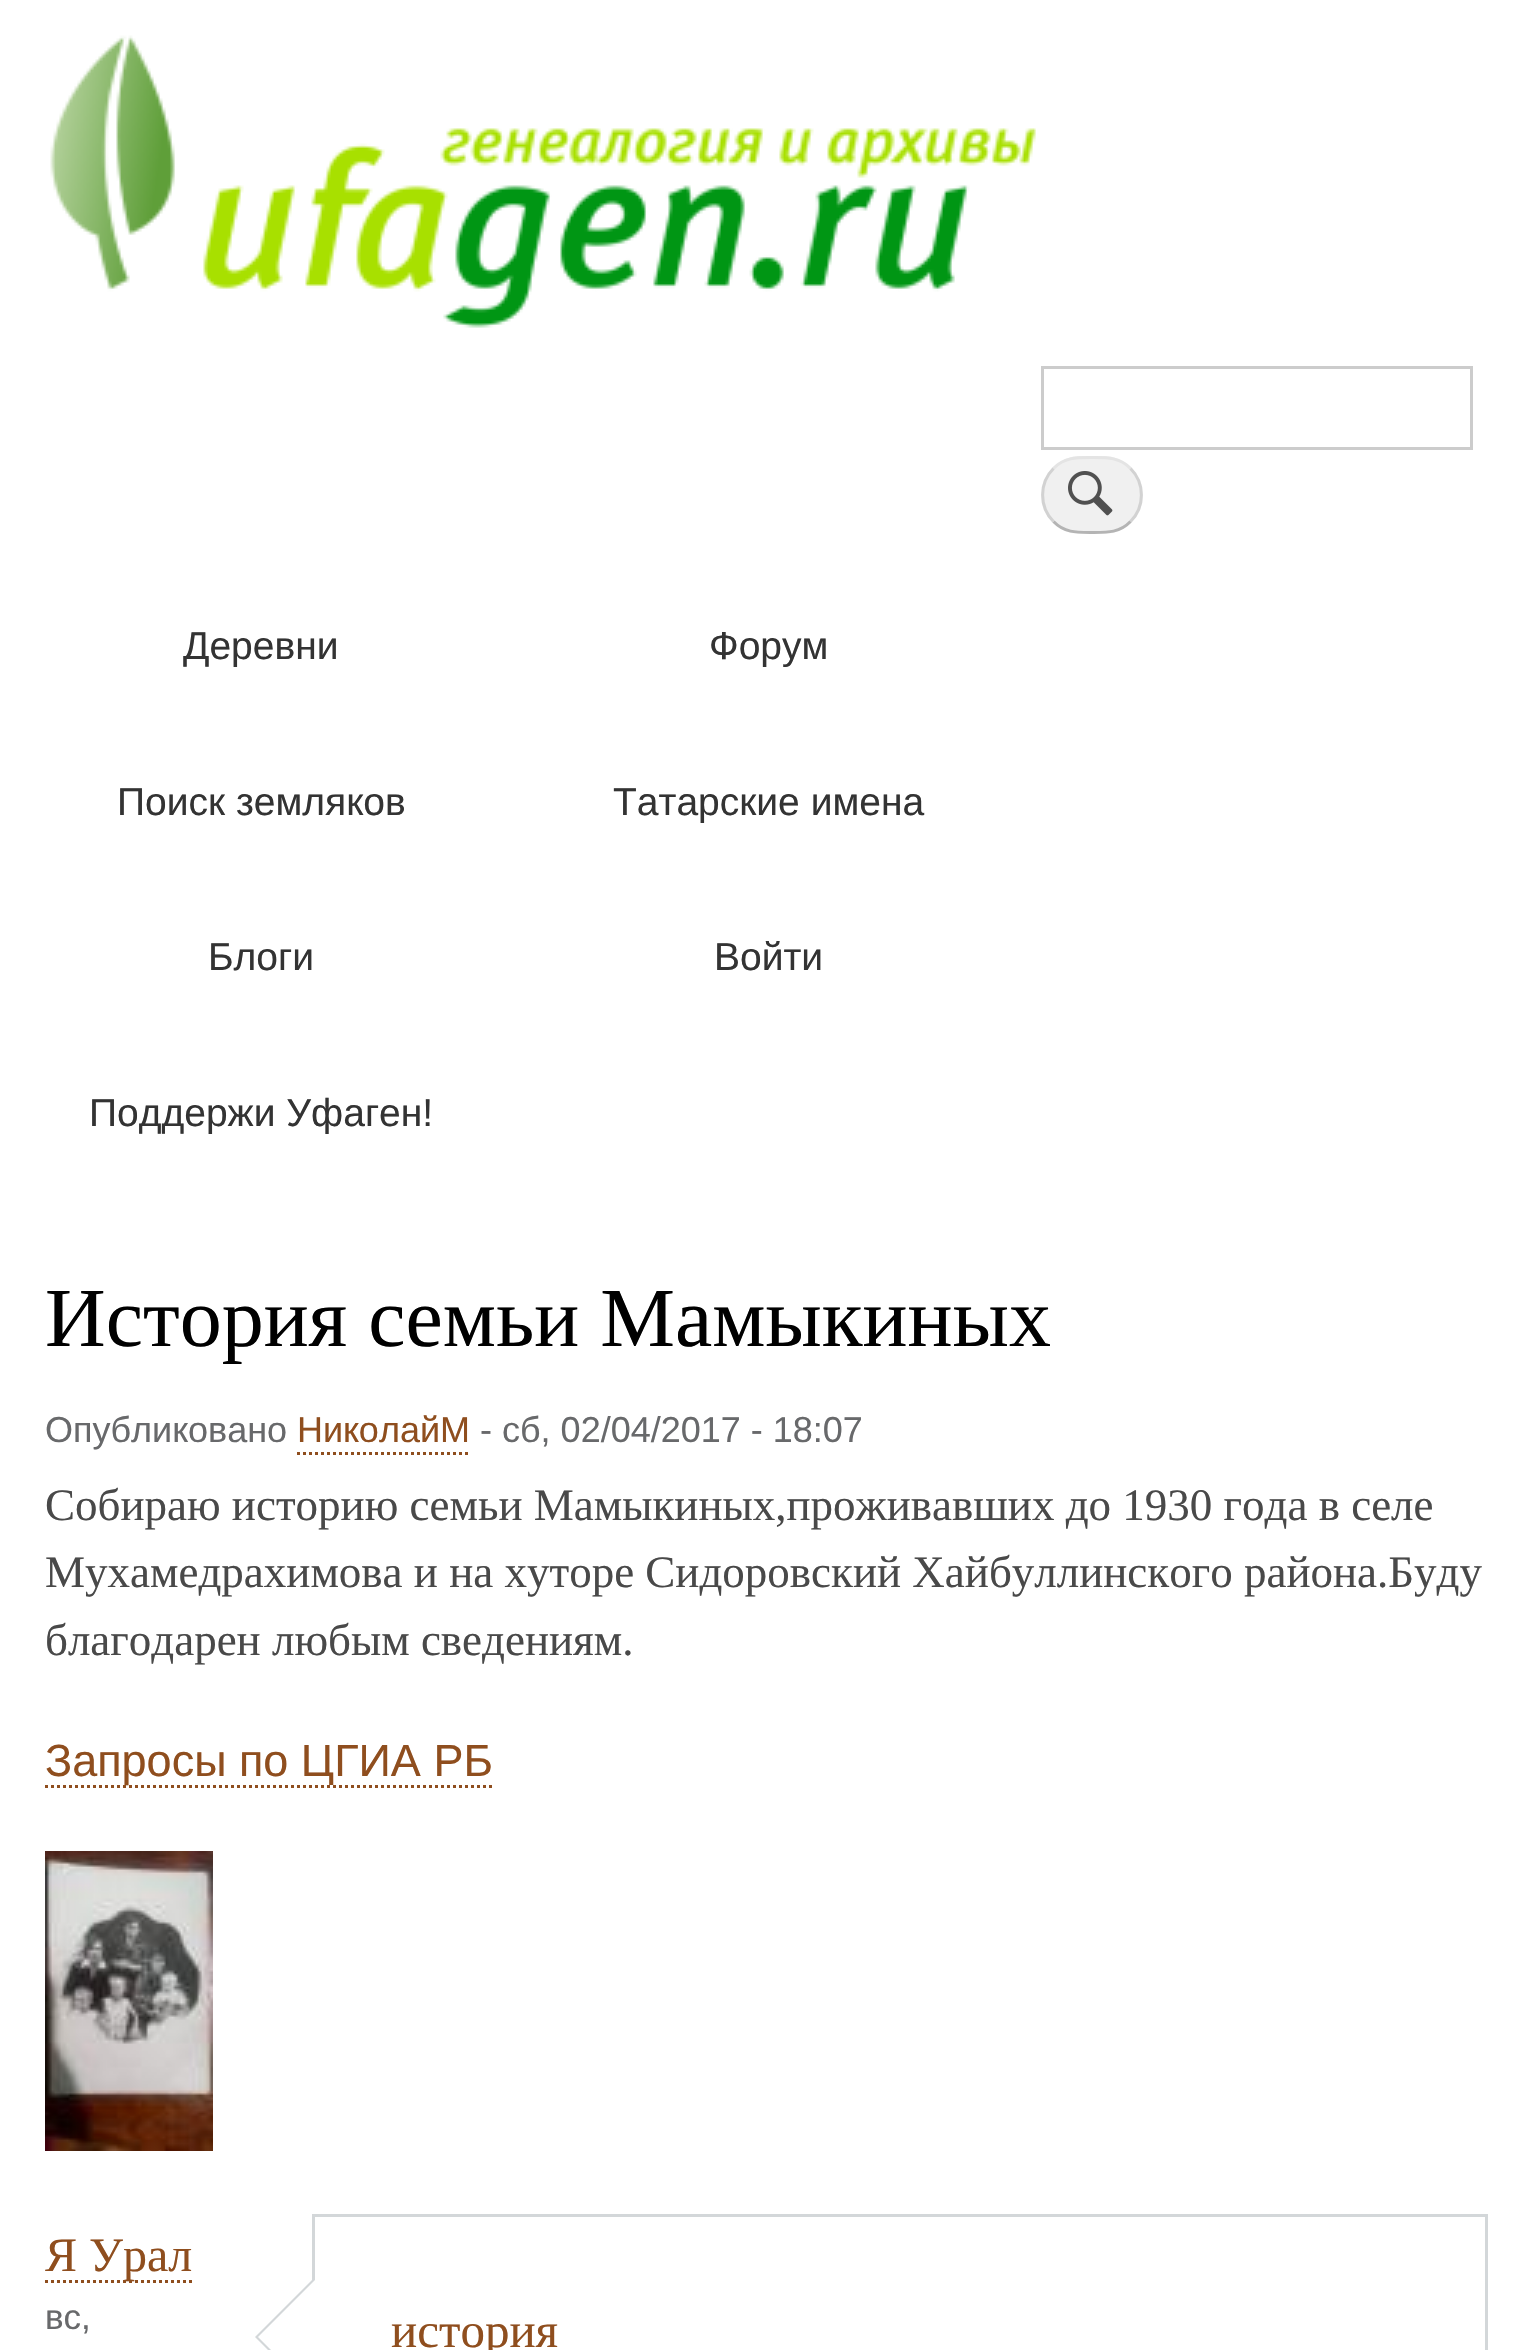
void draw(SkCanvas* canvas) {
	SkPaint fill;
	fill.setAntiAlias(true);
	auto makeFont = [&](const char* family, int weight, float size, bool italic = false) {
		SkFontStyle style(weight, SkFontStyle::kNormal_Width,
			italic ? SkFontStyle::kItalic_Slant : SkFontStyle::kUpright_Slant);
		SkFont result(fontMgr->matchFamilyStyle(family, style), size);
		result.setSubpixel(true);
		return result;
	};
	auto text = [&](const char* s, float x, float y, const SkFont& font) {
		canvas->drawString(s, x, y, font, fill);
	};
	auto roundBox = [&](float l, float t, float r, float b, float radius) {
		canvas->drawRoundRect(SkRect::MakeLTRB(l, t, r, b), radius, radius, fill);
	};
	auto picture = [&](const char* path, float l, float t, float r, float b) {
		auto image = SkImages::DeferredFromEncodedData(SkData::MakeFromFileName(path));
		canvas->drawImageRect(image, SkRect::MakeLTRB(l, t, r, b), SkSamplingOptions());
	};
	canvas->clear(0xFFFFFFFF);
	picture("image0.png", 50, 35, 1036, 328);
	fill.setStyle(SkPaint::kStroke_Style);
	fill.setStrokeWidth(3);
	fill.setColor(0xFFCCCCCC);
	canvas->drawRect(SkRect::MakeLTRB(1042.5f, 367.5f, 1471.5f, 448.5f), fill);
	fill.setStyle(SkPaint::kFill_Style);
	fill.setColor(0xFFF0F0F0);
	roundBox(1041, 456, 1143, 534, 39);
	picture("image1.png", 1068, 471, 1113, 516);
	fill.setStyle(SkPaint::kStroke_Style);
	fill.setColor(0xFFE4E4E4);
	canvas->drawPath(SkPathBuilder().moveTo(1053.5f, 468.5f).cubicTo(1064.5f, 457, 1077, 457.5f, 1092, 457.5f).cubicTo(1107, 457.5f, 1119.5f, 457, 1130.5f, 468.5f).detach(), fill);
	fill.setColor(0xFFD2D2D2);
	canvas->drawPath(SkPathBuilder().moveTo(1130.5f, 468.5f).cubicTo(1145, 483, 1145, 507, 1130.5f, 521.5f).detach(), fill);
	fill.setColor(0xFFB4B4B4);
	canvas->drawPath(SkPathBuilder().moveTo(1130.5f, 521.5f).cubicTo(1119.5f, 533, 1107, 532.5f, 1092, 532.5f).cubicTo(1077, 532.5f, 1064.5f, 533, 1053.5f, 521.5f).detach(), fill);
	fill.setColor(0xFFD2D2D2);
	canvas->drawPath(SkPathBuilder().moveTo(1053.5f, 521.5f).cubicTo(1039, 507, 1039, 483, 1053.5f, 468.5f).detach(), fill);
	fill.setColor(0xFF8F4E1E);
	fill.setPathEffect(SkDashPathEffect::Make({{3, 3}}, 0));
	canvas->drawPath(SkPathBuilder().moveTo(297, 1453.5f).lineTo(471, 1453.5f).detach(), fill);
	fill.setPathEffect(nullptr);
	fill.setPathEffect(SkDashPathEffect::Make({{3, 3}}, 0));
	canvas->drawPath(SkPathBuilder().moveTo(45, 1786.5f).lineTo(492, 1786.5f).detach(), fill);
	fill.setPathEffect(nullptr);
	picture("image2.png", 45, 1851, 213, 2151);
	fill.setPathEffect(SkDashPathEffect::Make({{3, 3}}, 0));
	canvas->drawPath(SkPathBuilder().moveTo(45, 2281.5f).lineTo(192, 2281.5f).detach(), fill);
	fill.setPathEffect(nullptr);
	fill.setColor(0xFFD3D7D9);
	canvas->drawRect(SkRect::MakeLTRB(313.5f, 2215.5f, 1486.5f, 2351.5f), fill);
	fill.setStyle(SkPaint::kFill_Style);
	canvas->drawPath(SkPathBuilder().moveTo(315, 2277).lineTo(315, 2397).lineTo(255, 2337).close().detach(), fill);
	fill.setColor(0xFFFFFFFF);
	canvas->drawPath(SkPathBuilder().moveTo(318, 2277).lineTo(318, 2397).lineTo(258, 2337).close().detach(), fill);
	auto font1 = makeFont("Liberation Sans", 400, 39);
	fill.setColor(0xFF333333);
	text("Деревни", 183, 659, font1);
	text("Форум", 709, 659, font1);
	text("Поиск земляков", 117, 815, font1);
	text("Татарские имена", 613, 815, font1);
	text("Блоги", 208, 970, font1);
	text("Войти", 714, 970, font1);
	text("Поддержи Уфаген!", 89, 1126, font1);
	auto font2 = makeFont("Liberation Serif", 400, 84);
	fill.setColor(0xFF000000);
	text("История семьи Мамыкиных", 45, 1346, font2);
	auto font3 = makeFont("Liberation Sans", 400, 36);
	fill.setColor(0xFF68696B);
	text("Опубликовано", 45, 1442, font3);
	fill.setColor(0xFF8F4E1E);
	text("НиколайМ", 297, 1442, font3);
	fill.setColor(0xFF68696B);
	text("- сб, 02/04/2017 - 18:07", 480, 1442, font3);
	auto font4 = makeFont("Liberation Serif", 400, 45);
	fill.setColor(0xFF494949);
	text("Собираю историю семьи Мамыкиных,проживавших до 1930 года в селе", 45, 1520, font4);
	text("Мухамедрахимова и на хуторе Сидоровский Хайбуллинского района.Буду", 45, 1587, font4);
	text("благодарен любым сведениям.", 45, 1655, font4);
	auto font5 = makeFont("Liberation Sans", 400, 45);
	fill.setColor(0xFF8F4E1E);
	text("Запросы по ЦГИА РБ", 45, 1776, font5);
	auto font6 = makeFont("Liberation Serif", 400, 48);
	text("Я Урал", 45, 2271, font6);
	auto font7 = makeFont("Liberation Sans", 400, 35);
	fill.setColor(0xFF68696B);
	text("вс,", 45, 2329, font7);
	auto font8 = makeFont("Liberation Serif", 400, 49);
	fill.setColor(0xFF8F4E1E);
	text("история", 391, 2347, font8);
}
